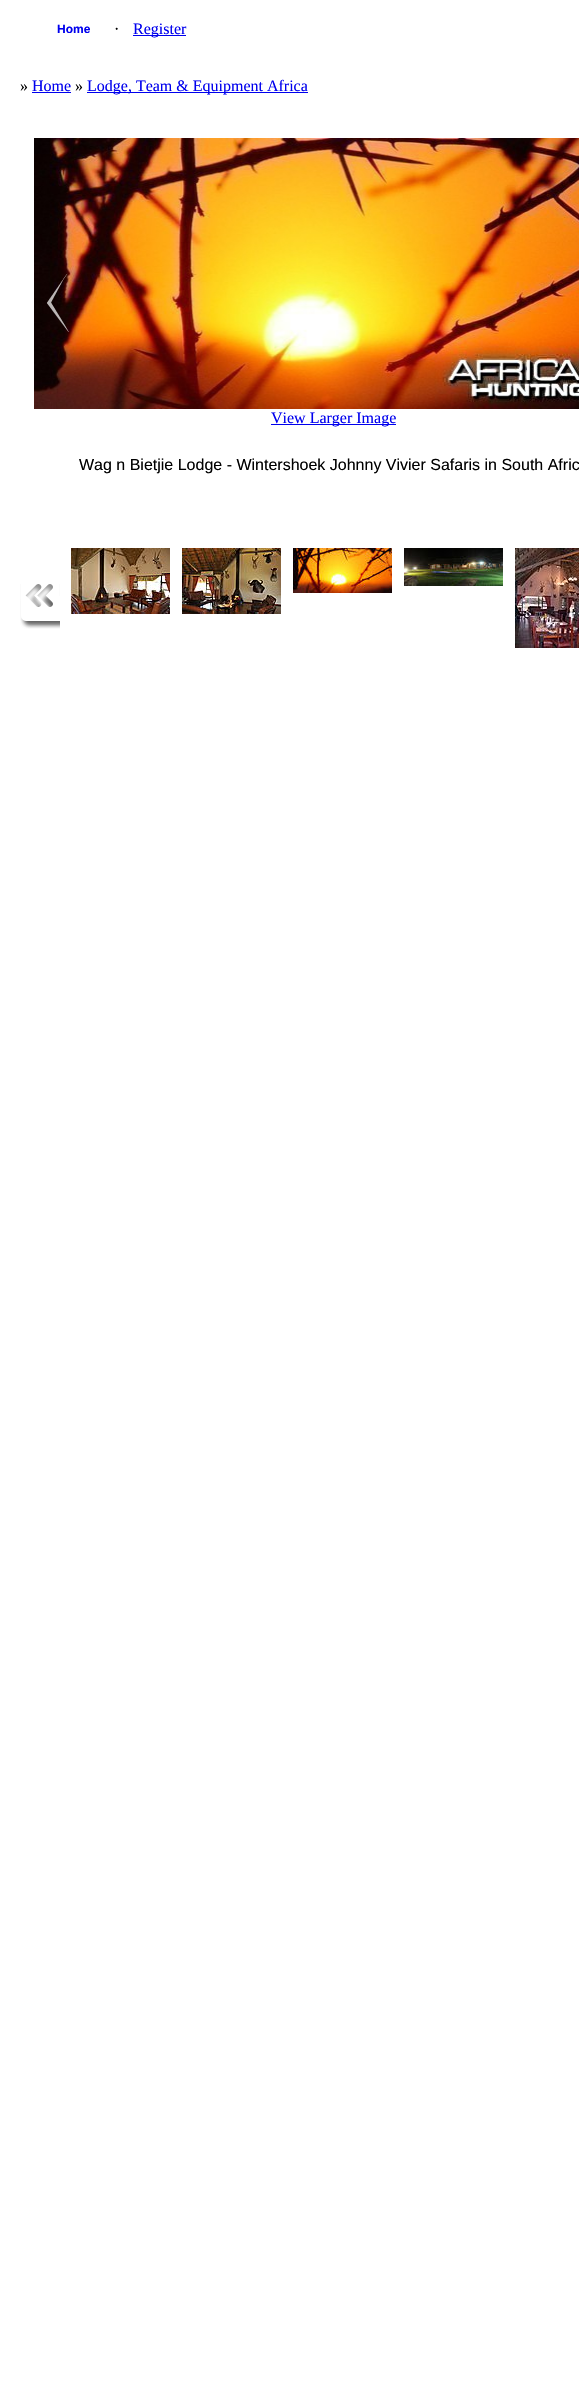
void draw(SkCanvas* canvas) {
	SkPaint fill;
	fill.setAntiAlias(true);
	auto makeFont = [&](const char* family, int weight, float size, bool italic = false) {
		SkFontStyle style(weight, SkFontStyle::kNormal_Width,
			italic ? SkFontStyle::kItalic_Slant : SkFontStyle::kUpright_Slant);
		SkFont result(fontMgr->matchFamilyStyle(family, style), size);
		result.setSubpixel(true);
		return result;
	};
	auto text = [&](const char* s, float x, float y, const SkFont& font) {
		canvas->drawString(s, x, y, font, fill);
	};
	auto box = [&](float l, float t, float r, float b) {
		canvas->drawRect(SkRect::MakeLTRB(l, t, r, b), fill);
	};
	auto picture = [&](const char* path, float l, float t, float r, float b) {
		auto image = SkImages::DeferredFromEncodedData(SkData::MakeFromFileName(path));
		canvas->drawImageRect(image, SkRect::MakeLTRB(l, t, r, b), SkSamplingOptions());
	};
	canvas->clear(0xFFFFFFFF);
	fill.setColor(0xFF0000EE);
	box(133, 35, 186, 36);
	box(32, 92, 71, 93);
	box(87, 92, 308, 93);
	picture("image0.png", 34, 138, 579, 409);
	picture("image1.png", 47, 274, 69, 332);
	box(271, 424, 396, 425);
	picture("image2.png", 20, 584, 60, 629);
	picture("image3.png", 71, 548, 170, 614);
	picture("image4.png", 182, 548, 281, 614);
	picture("image5.png", 293, 548, 392, 593);
	picture("image6.png", 404, 548, 503, 586);
	picture("image7.png", 515, 548, 579, 648);
	auto font1 = makeFont("Liberation Sans", 700, 12);
	text("Home", 57, 33, font1);
	auto font2 = makeFont("Liberation Serif", 400, 16);
	fill.setColor(0xFF000000);
	text("·", 114, 34, font2);
	fill.setColor(0xFF0000EE);
	text("Register", 133, 34, font2);
	fill.setColor(0xFF000000);
	text("»", 20, 91, font2);
	fill.setColor(0xFF0000EE);
	text("Home", 32, 91, font2);
	fill.setColor(0xFF000000);
	text("»", 75, 91, font2);
	fill.setColor(0xFF0000EE);
	text("Lodge, Team & Equipment Africa", 87, 91, font2);
	text("View Larger Image", 271, 423, font2);
	auto font3 = makeFont("Liberation Sans", 400, 16);
	fill.setColor(0xFF000000);
	text("Wag n Bietjie Lodge - Wintershoek Johnny Vivier Safaris in South Afric", 79, 470, font3);
}
